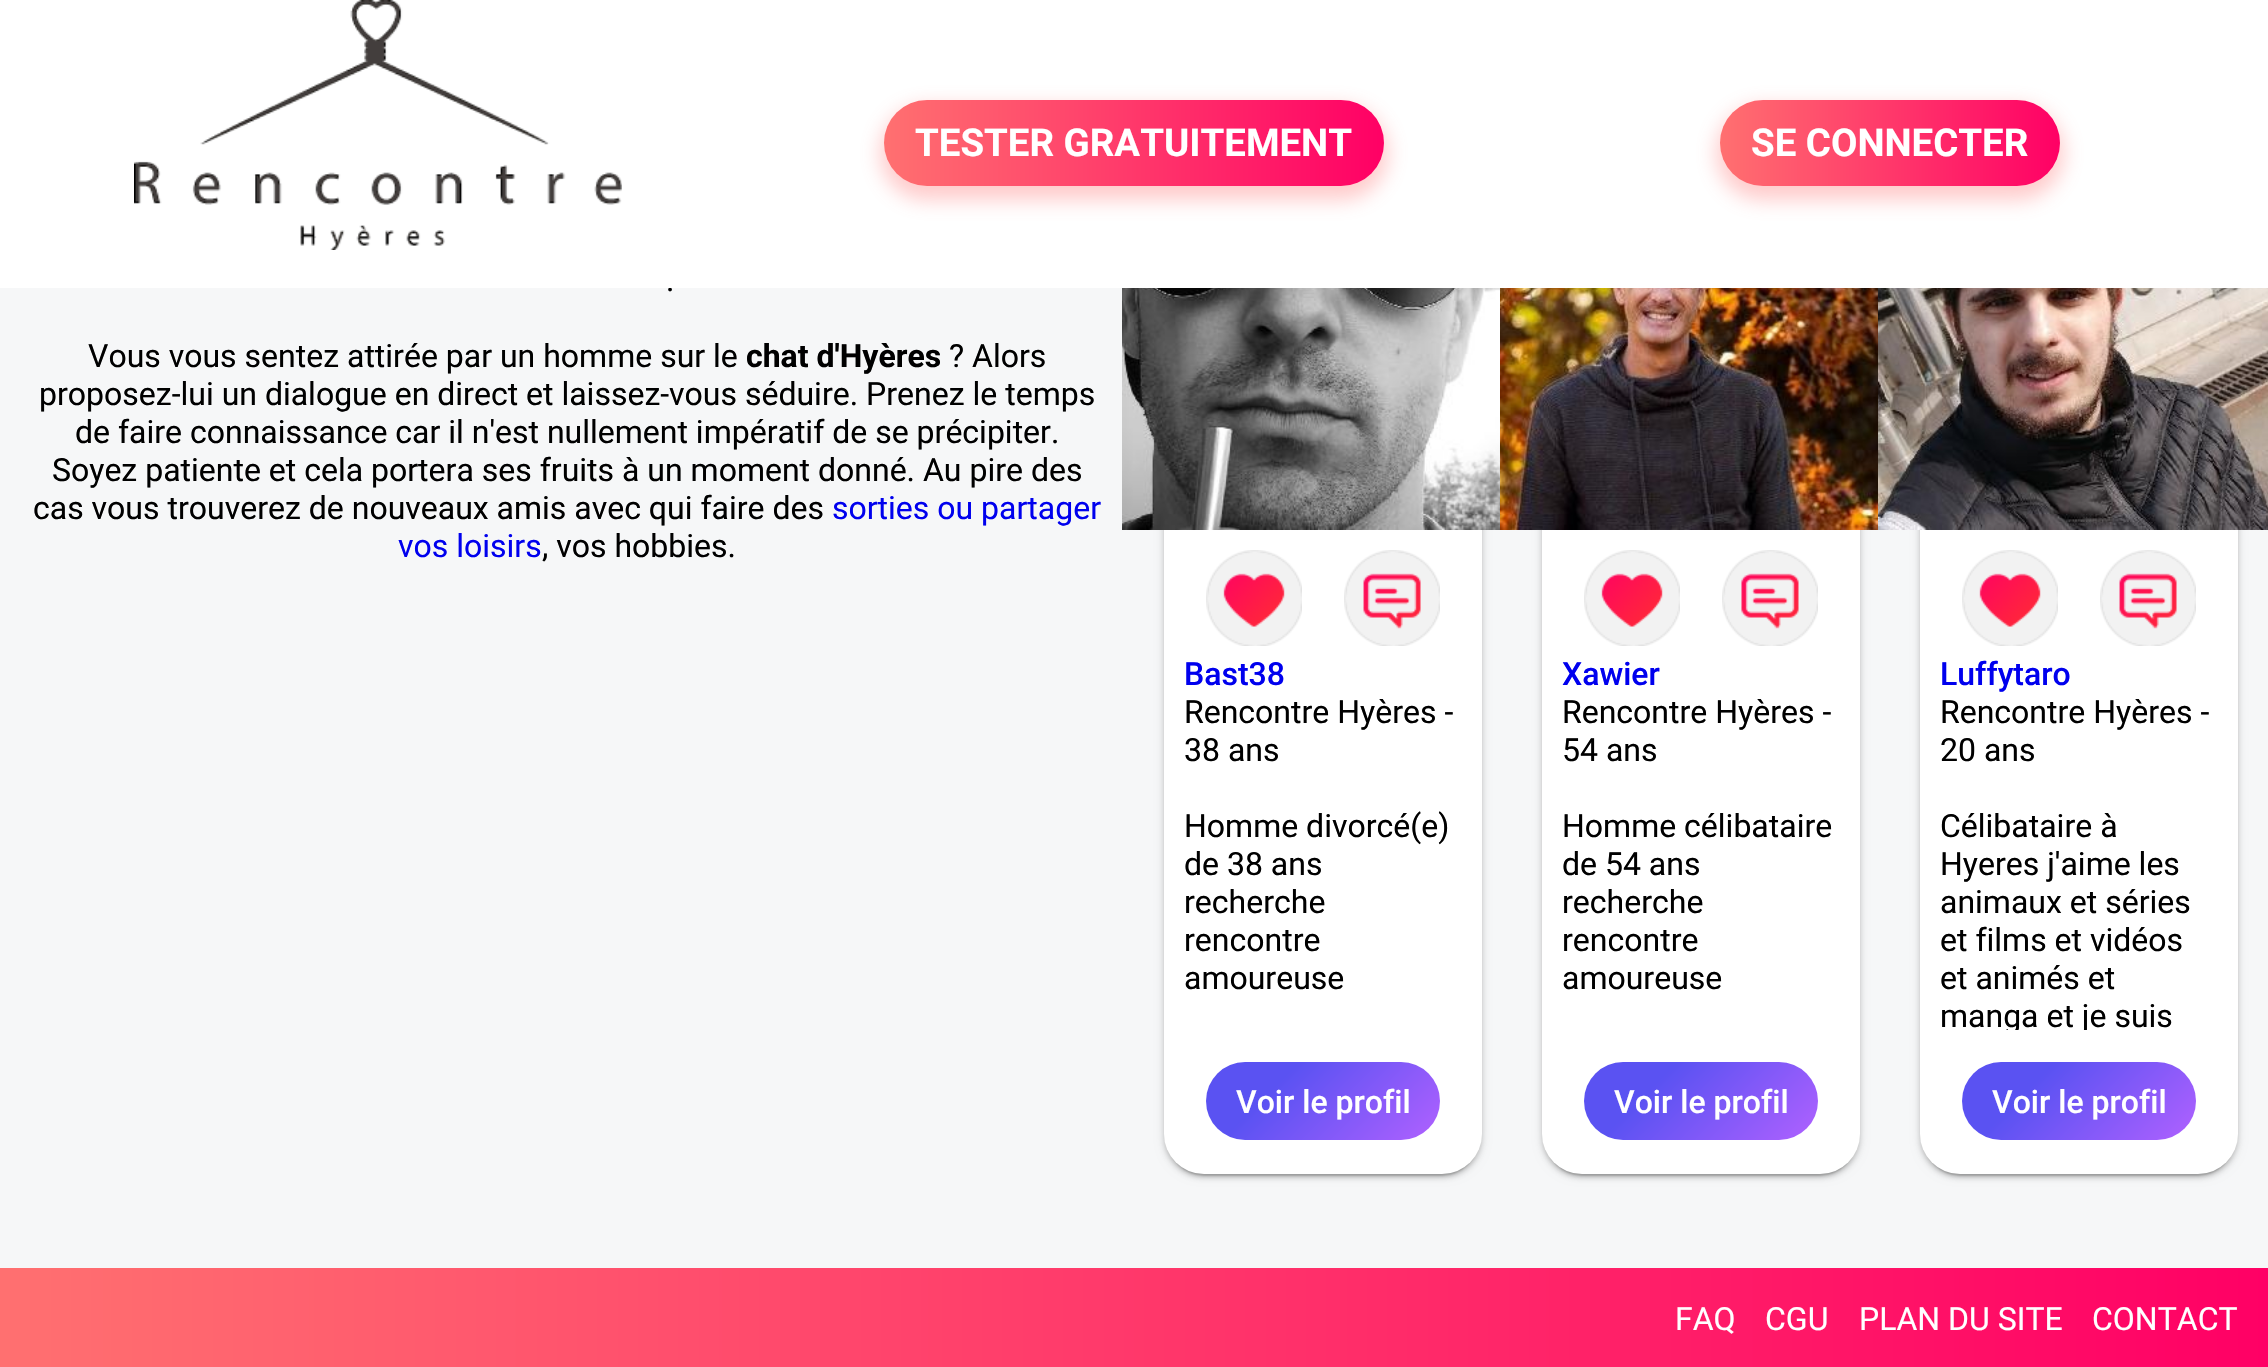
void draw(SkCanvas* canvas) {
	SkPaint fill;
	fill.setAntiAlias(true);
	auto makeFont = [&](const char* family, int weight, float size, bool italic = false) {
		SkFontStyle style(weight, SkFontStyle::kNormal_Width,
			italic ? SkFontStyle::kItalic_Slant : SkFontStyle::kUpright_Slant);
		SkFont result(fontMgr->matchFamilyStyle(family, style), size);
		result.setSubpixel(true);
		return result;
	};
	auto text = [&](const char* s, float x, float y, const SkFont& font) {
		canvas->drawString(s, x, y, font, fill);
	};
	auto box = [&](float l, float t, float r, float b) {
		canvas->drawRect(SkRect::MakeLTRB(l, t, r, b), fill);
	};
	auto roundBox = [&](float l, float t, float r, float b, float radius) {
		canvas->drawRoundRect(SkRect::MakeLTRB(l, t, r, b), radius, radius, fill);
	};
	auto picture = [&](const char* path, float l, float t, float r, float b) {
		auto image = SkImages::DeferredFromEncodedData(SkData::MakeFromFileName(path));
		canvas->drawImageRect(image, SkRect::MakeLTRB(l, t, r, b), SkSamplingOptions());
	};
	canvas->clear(0xFFF6F7F8);
	fill.setColor(0x1F000000);
	fill.setMaskFilter(SkMaskFilter::MakeBlur(kNormal_SkBlurStyle, 5));
	canvas->drawRoundRect(SkRect::MakeLTRB(1164, 72, 1482, 1176), 40, 40, fill);
	fill.setMaskFilter(nullptr);
	fill.setColor(0x24000000);
	fill.setMaskFilter(SkMaskFilter::MakeBlur(kNormal_SkBlurStyle, 2));
	canvas->drawRoundRect(SkRect::MakeLTRB(1164, 74, 1482, 1178), 40, 40, fill);
	fill.setMaskFilter(nullptr);
	fill.setColor(0x33000000);
	fill.setMaskFilter(SkMaskFilter::MakeBlur(kNormal_SkBlurStyle, 1));
	canvas->drawRoundRect(SkRect::MakeLTRB(1168, 80, 1478, 1176), 36, 36, fill);
	fill.setMaskFilter(nullptr);
	fill.setColor(0xFFFFFFFF);
	roundBox(1164, 70, 1482, 1174, 40);
	picture("image1.png", 1122, 288, 1500, 530);
	picture("image2.png", 1206, 550, 1302, 646);
	picture("image3.png", 1344, 550, 1440, 646);
	{
		const SkColor colors[] = {0xFF5A52F2, 0xFFB061FF};
		const float stops[] = {0.3f, 1};
		const SkPoint ends[] = {{1245, 1023}, {1401, 1179}};
		fill.setShader(SkGradientShader::MakeLinear(ends, colors, stops, 2, SkTileMode::kClamp));
		fill.setAlpha(255);
	}
	roundBox(1206, 1062, 1440, 1140, 39);
	fill.setShader(nullptr);
	fill.setColor(0x1F000000);
	fill.setMaskFilter(SkMaskFilter::MakeBlur(kNormal_SkBlurStyle, 5));
	canvas->drawRoundRect(SkRect::MakeLTRB(1542, 72, 1860, 1176), 40, 40, fill);
	fill.setMaskFilter(nullptr);
	fill.setColor(0x24000000);
	fill.setMaskFilter(SkMaskFilter::MakeBlur(kNormal_SkBlurStyle, 2));
	canvas->drawRoundRect(SkRect::MakeLTRB(1542, 74, 1860, 1178), 40, 40, fill);
	fill.setMaskFilter(nullptr);
	fill.setColor(0x33000000);
	fill.setMaskFilter(SkMaskFilter::MakeBlur(kNormal_SkBlurStyle, 1));
	canvas->drawRoundRect(SkRect::MakeLTRB(1546, 80, 1856, 1176), 36, 36, fill);
	fill.setMaskFilter(nullptr);
	fill.setColor(0xFFFFFFFF);
	roundBox(1542, 70, 1860, 1174, 40);
	picture("image4.png", 1500, 288, 1878, 530);
	picture("image5.png", 1584, 550, 1680, 646);
	picture("image6.png", 1722, 550, 1818, 646);
	{
		const SkColor colors[] = {0xFF5A52F2, 0xFFB061FF};
		const float stops[] = {0.3f, 1};
		const SkPoint ends[] = {{1623, 1023}, {1779, 1179}};
		fill.setShader(SkGradientShader::MakeLinear(ends, colors, stops, 2, SkTileMode::kClamp));
		fill.setAlpha(255);
	}
	roundBox(1584, 1062, 1818, 1140, 39);
	fill.setShader(nullptr);
	fill.setColor(0x1F000000);
	fill.setMaskFilter(SkMaskFilter::MakeBlur(kNormal_SkBlurStyle, 5));
	canvas->drawRoundRect(SkRect::MakeLTRB(1920, 72, 2238, 1176), 40, 40, fill);
	fill.setMaskFilter(nullptr);
	fill.setColor(0x24000000);
	fill.setMaskFilter(SkMaskFilter::MakeBlur(kNormal_SkBlurStyle, 2));
	canvas->drawRoundRect(SkRect::MakeLTRB(1920, 74, 2238, 1178), 40, 40, fill);
	fill.setMaskFilter(nullptr);
	fill.setColor(0x33000000);
	fill.setMaskFilter(SkMaskFilter::MakeBlur(kNormal_SkBlurStyle, 1));
	canvas->drawRoundRect(SkRect::MakeLTRB(1924, 80, 2234, 1176), 36, 36, fill);
	fill.setMaskFilter(nullptr);
	fill.setColor(0xFFFFFFFF);
	roundBox(1920, 70, 2238, 1174, 40);
	picture("image7.png", 1878, 288, 2268, 530);
	picture("image8.png", 1962, 550, 2058, 646);
	picture("image3.png", 2100, 550, 2196, 646);
	{
		const SkColor colors[] = {0xFF5A52F2, 0xFFB061FF};
		const float stops[] = {0.3f, 1};
		const SkPoint ends[] = {{2001, 1023}, {2157, 1179}};
		fill.setShader(SkGradientShader::MakeLinear(ends, colors, stops, 2, SkTileMode::kClamp));
		fill.setAlpha(255);
	}
	roundBox(1962, 1062, 2196, 1140, 39);
	{
		const SkColor colors[] = {0xFFFF7070, 0xFFFF0065};
		const float stops[] = {0, 1};
		const SkPoint ends[] = {{0, 1318}, {2268, 1318}};
		fill.setShader(SkGradientShader::MakeLinear(ends, colors, stops, 2, SkTileMode::kClamp));
		fill.setAlpha(255);
	}
	box(0, 1268, 2268, 1367);
	auto font1 = makeFont("Roboto", 400, 32);
	fill.setShader(nullptr);
	fill.setColor(0xFF000000);
	text(".", 666, 291, font1);
	fill.setColor(0xFFFFFFFF);
	box(0, 0, 2268, 288);
	fill.setColor(0x5CFF7070);
	fill.setMaskFilter(SkMaskFilter::MakeBlur(kNormal_SkBlurStyle, 10));
	canvas->drawRoundRect(SkRect::MakeLTRB(1716, 106, 2064, 200), 47, 47, fill);
	fill.setMaskFilter(nullptr);
	{
		const SkColor colors[] = {0xFFFF7070, 0xFFFF0065};
		const float stops[] = {0, 1};
		const SkPoint ends[] = {{1720, 143}, {2060, 143}};
		fill.setShader(SkGradientShader::MakeLinear(ends, colors, stops, 2, SkTileMode::kClamp));
		fill.setAlpha(255);
	}
	roundBox(1720, 100, 2060, 186, 43);
	auto font2 = makeFont("Roboto", 700, 38.4f);
	fill.setShader(nullptr);
	fill.setColor(0xFFFFFFFF);
	text("SE CONNECTER", 1751, 156, font2);
	fill.setColor(0x5CFF7070);
	fill.setMaskFilter(SkMaskFilter::MakeBlur(kNormal_SkBlurStyle, 10));
	canvas->drawRoundRect(SkRect::MakeLTRB(880, 106, 1388, 200), 47, 47, fill);
	fill.setMaskFilter(nullptr);
	{
		const SkColor colors[] = {0xFFFF7070, 0xFFFF0065};
		const float stops[] = {0, 1};
		const SkPoint ends[] = {{884, 143}, {1384, 143}};
		fill.setShader(SkGradientShader::MakeLinear(ends, colors, stops, 2, SkTileMode::kClamp));
		fill.setAlpha(255);
	}
	roundBox(884, 100, 1384, 186, 43);
	fill.setShader(nullptr);
	fill.setColor(0xFFFFFFFF);
	text("TESTER GRATUITEMENT", 915, 156, font2);
	picture("image0.png", 134, 0, 622, 250);
	fill.setColor(0xFF000000);
	text("Vous vous sentez attirée par un homme sur le", 88, 367, font1);
	auto font3 = makeFont("Roboto", 700, 32);
	text("chat d'Hyères", 746, 367, font3);
	text("? Alors", 949, 367, font1);
	text("proposez-lui un dialogue en direct et laissez-vous séduire. Prenez le temps", 39, 405, font1);
	text("de faire connaissance car il n'est nullement impératif de se précipiter.", 75, 443, font1);
	text("Soyez patiente et cela portera ses fruits à un moment donné. Au pire des", 52, 481, font1);
	text("cas vous trouverez de nouveaux amis avec qui faire des", 33, 519, font1);
	fill.setColor(0xFF0000EE);
	text("sorties ou partager", 832, 519, font1);
	text("vos loisirs", 398, 557, font1);
	fill.setColor(0xFF000000);
	text(", vos hobbies.", 542, 557, font1);
	auto font4 = makeFont("Roboto", 500, 32);
	fill.setColor(0xFF0000EE);
	text("Bast38", 1184, 685, font4);
	fill.setColor(0xFF000000);
	text("Rencontre Hyères -", 1184, 723, font1);
	text("38 ans", 1184, 761, font1);
	text("Homme divorcé(e)", 1184, 837, font1);
	text("de 38 ans", 1184, 875, font1);
	text("recherche", 1184, 913, font1);
	text("rencontre", 1184, 951, font1);
	text("amoureuse", 1184, 989, font1);
	fill.setColor(0xFFFFFFFF);
	text("Voir le profil", 1236, 1113, font4);
	fill.setColor(0xFF0000EE);
	text("Xawier", 1562, 685, font4);
	fill.setColor(0xFF000000);
	text("Rencontre Hyères -", 1562, 723, font1);
	text("54 ans", 1562, 761, font1);
	text("Homme célibataire", 1562, 837, font1);
	text("de 54 ans", 1562, 875, font1);
	text("recherche", 1562, 913, font1);
	text("rencontre", 1562, 951, font1);
	text("amoureuse", 1562, 989, font1);
	fill.setColor(0xFFFFFFFF);
	text("Voir le profil", 1614, 1113, font4);
	fill.setColor(0xFF0000EE);
	text("Luffytaro", 1940, 685, font4);
	fill.setColor(0xFF000000);
	text("Rencontre Hyères -", 1940, 723, font1);
	text("20 ans", 1940, 761, font1);
	text("Célibataire à", 1940, 837, font1);
	text("Hyeres j'aime les", 1940, 875, font1);
	text("animaux et séries", 1940, 913, font1);
	text("et films et vidéos", 1940, 951, font1);
	text("et animés et", 1940, 989, font1);
	canvas->save();
	canvas->clipRect(SkRect::MakeLTRB(1920, 530, 2238, 1030));
	text("manga et je suis", 1940, 1027, font1);
	canvas->restore();
	fill.setColor(0xFFFFFFFF);
	text("Voir le profil", 1992, 1113, font4);
	text("FAQ", 1675, 1330, font1);
	text("CGU", 1765, 1330, font1);
	text("PLAN DU SITE", 1859, 1330, font1);
	text("CONTACT", 2092, 1330, font1);
}
